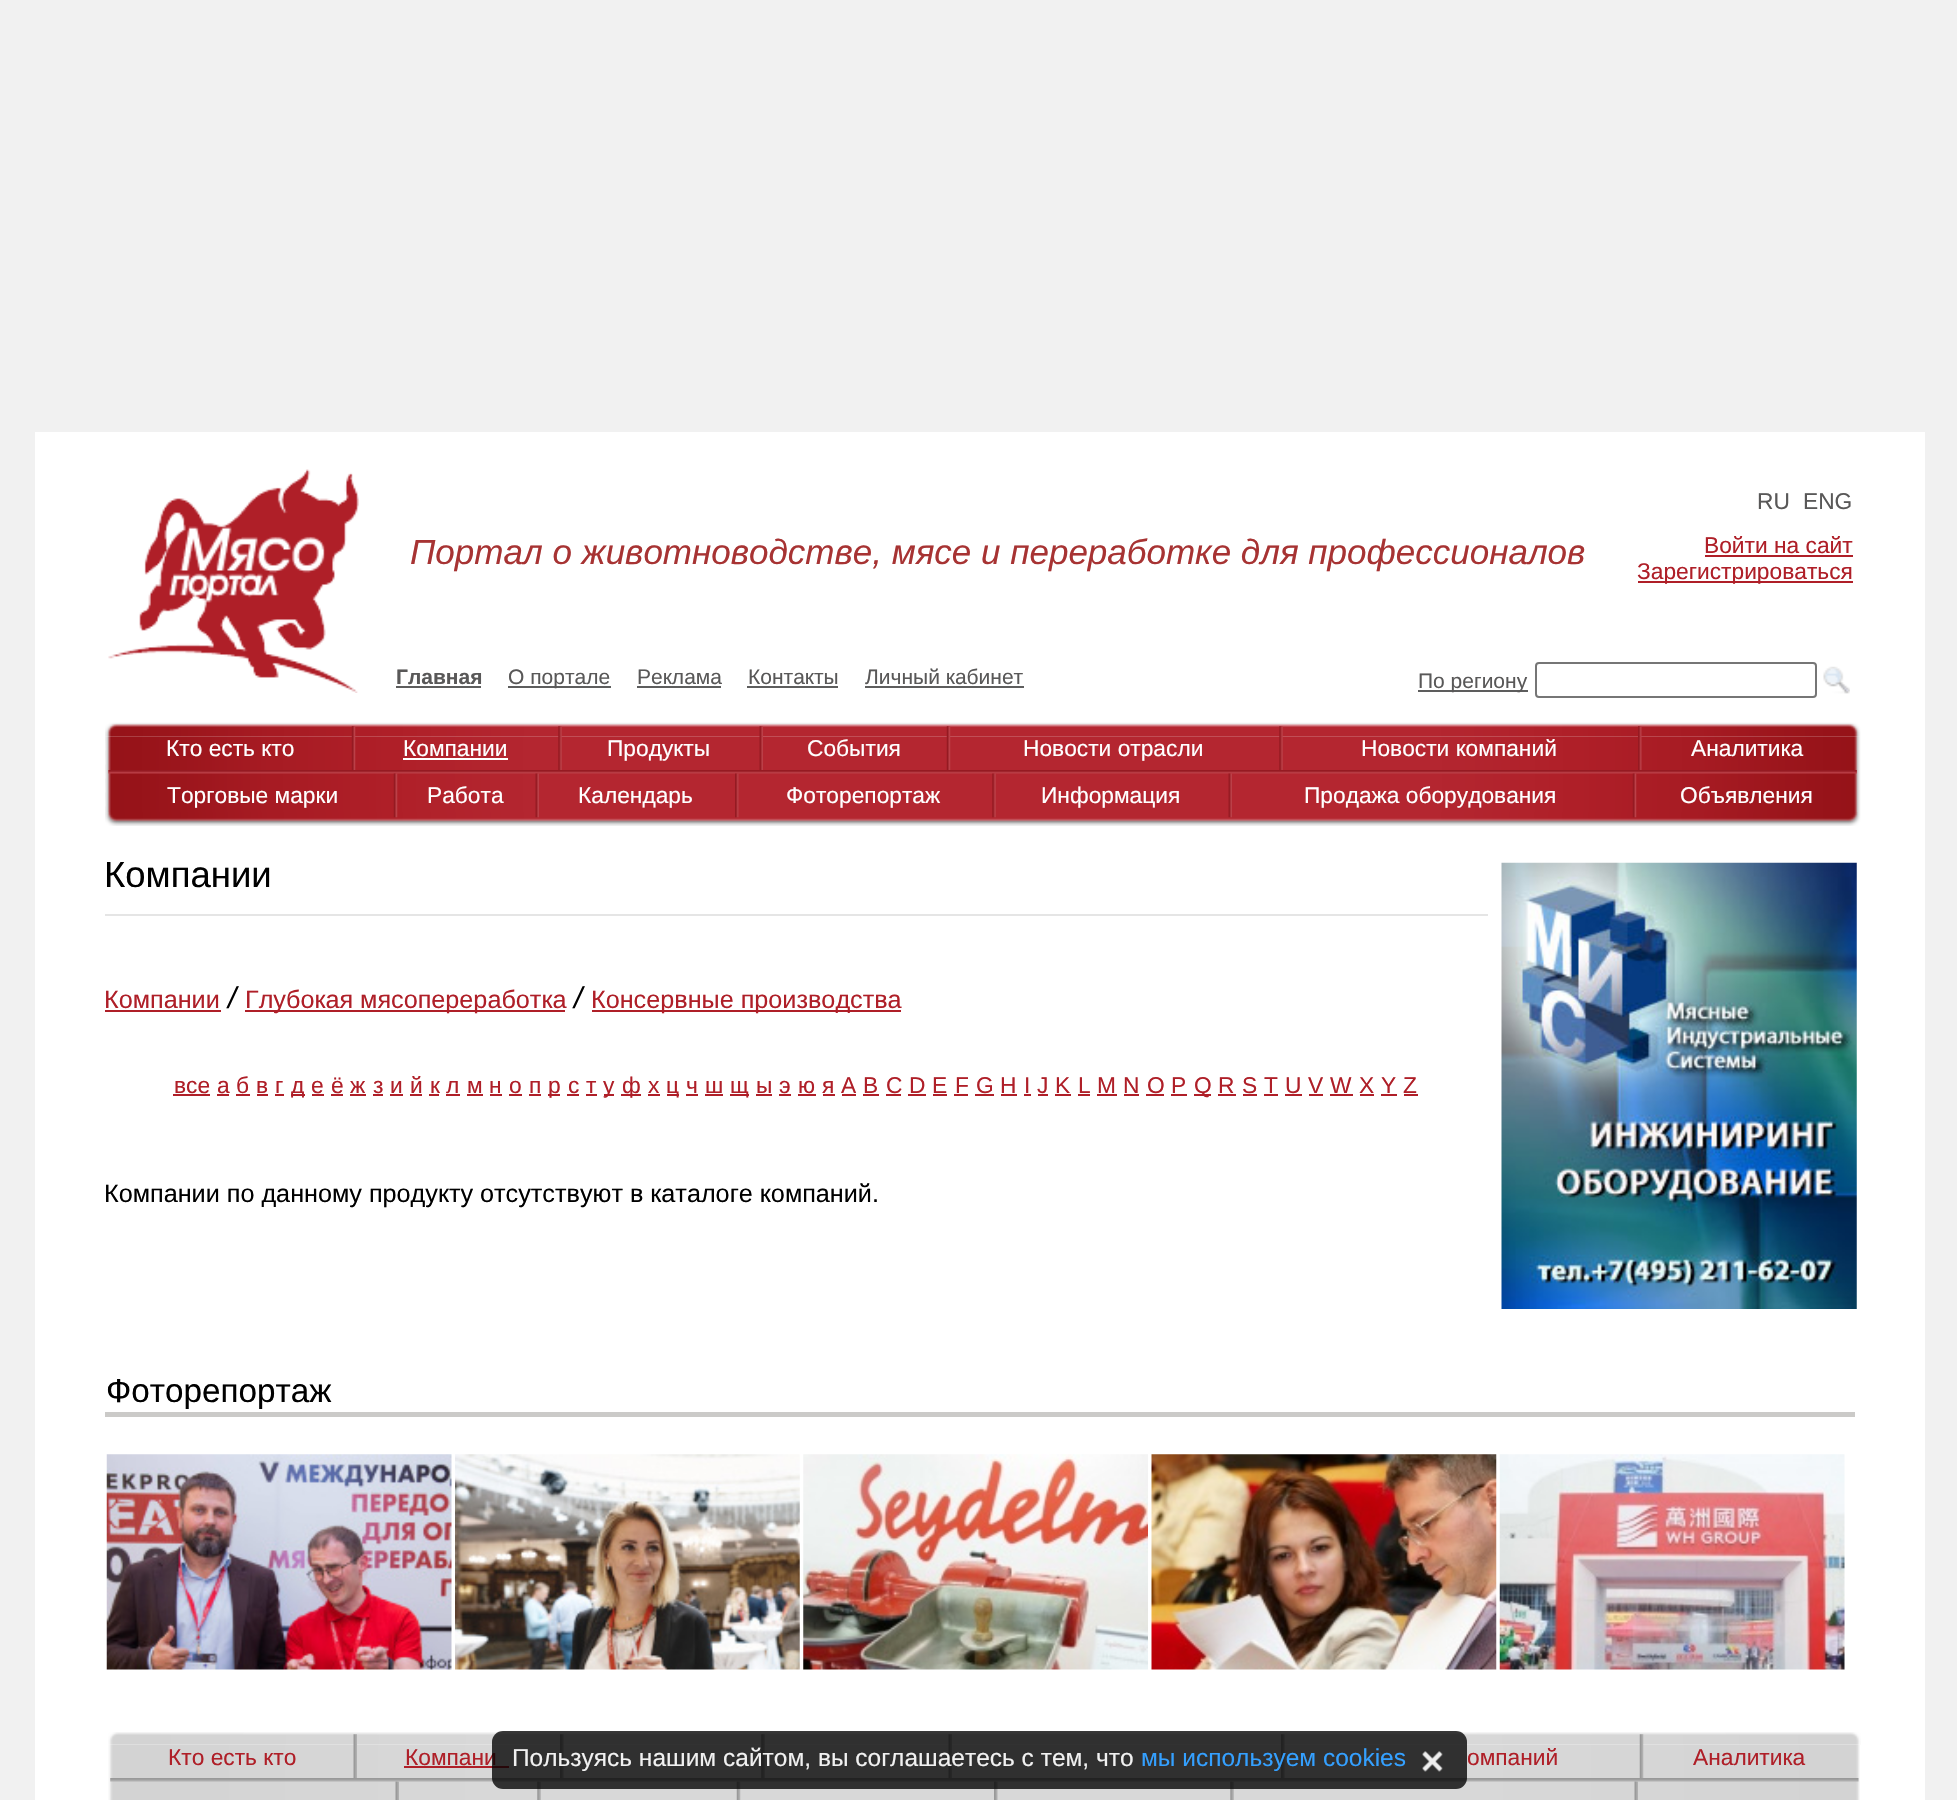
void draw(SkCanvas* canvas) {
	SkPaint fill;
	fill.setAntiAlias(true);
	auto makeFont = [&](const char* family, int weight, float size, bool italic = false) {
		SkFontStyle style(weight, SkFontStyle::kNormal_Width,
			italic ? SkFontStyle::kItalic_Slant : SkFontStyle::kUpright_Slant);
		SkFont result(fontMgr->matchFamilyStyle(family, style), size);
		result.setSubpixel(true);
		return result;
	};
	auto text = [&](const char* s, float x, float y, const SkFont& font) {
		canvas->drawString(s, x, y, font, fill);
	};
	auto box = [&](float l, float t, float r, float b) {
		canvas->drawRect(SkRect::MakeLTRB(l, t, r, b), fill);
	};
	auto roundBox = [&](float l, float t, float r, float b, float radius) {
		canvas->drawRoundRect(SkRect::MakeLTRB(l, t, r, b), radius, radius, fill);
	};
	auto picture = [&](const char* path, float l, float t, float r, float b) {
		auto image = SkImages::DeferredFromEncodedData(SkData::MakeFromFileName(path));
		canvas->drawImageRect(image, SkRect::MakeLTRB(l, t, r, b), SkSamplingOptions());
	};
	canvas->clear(0xFFF1F1F1);
	fill.setColor(0xFFFFFFFF);
	box(35, 432, 1925, 1800);
	picture("image0.png", 108, 469, 359, 693);
	fill.setColor(0xFFAF1F28);
	box(1705, 555, 1853, 557);
	box(1638, 581, 1853, 583);
	fill.setColor(0xFF5D5D5D);
	box(396, 686, 481, 688);
	box(508, 686, 611, 688);
	box(637, 686, 721, 688);
	box(747, 686, 838, 688);
	box(865, 686, 1024, 688);
	box(1418, 690, 1528, 692);
	fill.setStyle(SkPaint::kStroke_Style);
	fill.setStrokeWidth(2);
	fill.setColor(0xFF767676);
	canvas->drawRoundRect(SkRect::MakeLTRB(1536, 663, 1816, 697), 3, 3, fill);
	picture("image1.png", 1823, 666, 1850, 694);
	picture("image2.png", 105, 722, 1861, 737);
	picture("image3.png", 105, 812, 1861, 826);
	picture("image4.png", 105, 736, 1861, 812);
	picture("image5.png", 351, 726, 356, 770);
	fill.setStyle(SkPaint::kFill_Style);
	fill.setColor(0xFFFFFFFF);
	box(403, 758, 508, 760);
	picture("image6.png", 558, 726, 562, 770);
	picture("image7.png", 759, 726, 763, 770);
	picture("image8.png", 946, 726, 951, 770);
	picture("image6.png", 1279, 726, 1283, 770);
	picture("image9.png", 1638, 726, 1642, 770);
	picture("image10.png", 108, 770, 1857, 774);
	picture("image11.png", 393, 773, 398, 818);
	picture("image12.png", 535, 773, 539, 818);
	picture("image13.png", 735, 773, 739, 818);
	picture("image14.png", 992, 773, 996, 818);
	picture("image12.png", 1228, 773, 1232, 818);
	picture("image15.png", 1632, 773, 1637, 818);
	fill.setColor(0xFFE5E5E5);
	box(105, 914, 1488, 916);
	fill.setColor(0xFFAF1F28);
	box(105, 1010, 221, 1012);
	box(245, 1010, 565, 1012);
	box(592, 1010, 901, 1012);
	box(173, 1094, 210, 1096);
	box(217, 1094, 229, 1096);
	box(236, 1094, 250, 1096);
	box(257, 1094, 268, 1096);
	box(275, 1094, 284, 1096);
	box(291, 1094, 305, 1096);
	box(312, 1094, 324, 1096);
	box(331, 1094, 343, 1096);
	box(350, 1094, 366, 1096);
	box(373, 1094, 383, 1096);
	box(390, 1094, 403, 1096);
	box(410, 1094, 422, 1096);
	box(429, 1094, 439, 1096);
	box(446, 1094, 460, 1096);
	box(467, 1094, 483, 1096);
	box(490, 1094, 502, 1096);
	box(509, 1094, 522, 1096);
	box(529, 1094, 541, 1096);
	box(548, 1094, 560, 1096);
	box(567, 1094, 579, 1096);
	box(586, 1094, 597, 1096);
	box(604, 1094, 614, 1096);
	box(621, 1094, 641, 1096);
	box(648, 1094, 660, 1096);
	box(667, 1094, 679, 1096);
	box(686, 1094, 698, 1096);
	box(705, 1094, 723, 1096);
	box(730, 1094, 749, 1096);
	box(756, 1094, 772, 1096);
	box(779, 1094, 791, 1096);
	box(798, 1094, 816, 1096);
	box(823, 1094, 835, 1096);
	box(842, 1094, 856, 1096);
	box(863, 1094, 879, 1096);
	box(886, 1094, 901, 1096);
	box(908, 1094, 926, 1096);
	box(933, 1094, 947, 1096);
	box(954, 1094, 968, 1096);
	box(975, 1094, 994, 1096);
	box(1001, 1094, 1017, 1096);
	box(1024, 1094, 1031, 1096);
	box(1038, 1094, 1048, 1096);
	box(1055, 1094, 1071, 1096);
	box(1078, 1094, 1090, 1096);
	box(1097, 1094, 1117, 1096);
	box(1124, 1094, 1139, 1096);
	box(1146, 1094, 1164, 1096);
	box(1171, 1094, 1187, 1096);
	box(1194, 1094, 1211, 1096);
	box(1218, 1094, 1236, 1096);
	box(1243, 1094, 1257, 1096);
	box(1264, 1094, 1278, 1096);
	box(1285, 1094, 1302, 1096);
	box(1309, 1094, 1323, 1096);
	box(1330, 1094, 1353, 1096);
	box(1360, 1094, 1374, 1096);
	box(1381, 1094, 1397, 1096);
	box(1404, 1094, 1418, 1096);
	picture("image16.png", 1501, 862, 1857, 1309);
	fill.setColor(0xFFCBCAC8);
	box(105, 1412, 1855, 1417);
	picture("image17.png", 106, 1454, 452, 1670);
	picture("image18.png", 455, 1454, 800, 1670);
	picture("image19.png", 803, 1454, 1148, 1670);
	picture("image20.png", 1151, 1454, 1497, 1670);
	picture("image21.png", 1499, 1454, 1845, 1670);
	picture("image22.png", 108, 1732, 1861, 1745);
	picture("image23.png", 108, 1745, 1860, 1800);
	picture("image24.png", 353, 1734, 357, 1778);
	fill.setColor(0xFFAF1F28);
	box(404, 1766, 509, 1768);
	picture("image25.png", 560, 1734, 564, 1778);
	picture("image26.png", 761, 1734, 765, 1778);
	picture("image27.png", 948, 1734, 952, 1778);
	picture("image25.png", 1281, 1734, 1285, 1778);
	picture("image28.png", 1639, 1734, 1644, 1778);
	picture("image29.png", 110, 1778, 1859, 1782);
	picture("image30.png", 395, 1781, 399, 1800);
	picture("image31.png", 537, 1781, 541, 1800);
	picture("image32.png", 736, 1781, 741, 1800);
	picture("image33.png", 994, 1781, 998, 1800);
	picture("image31.png", 1230, 1781, 1234, 1800);
	picture("image34.png", 1634, 1781, 1638, 1800);
	auto font1 = makeFont("Liberation Sans", 400, 35, true);
	fill.setColor(0xFFA73333);
	text("Портал о животноводстве, мясе и переработке для профессионалов", 410, 564, font1);
	auto font2 = makeFont("Liberation Sans", 400, 22.75f);
	fill.setColor(0xFF595858);
	text("RU", 1757, 509, font2);
	text("ENG", 1803, 509, font2);
	fill.setColor(0xFFAF1F28);
	text("Войти на сайт", 1704, 553, font2);
	text("Зарегистрироваться", 1637, 579, font2);
	auto font3 = makeFont("Liberation Sans", 700, 21);
	fill.setColor(0xFF595858);
	text("Главная", 396, 684, font3);
	auto font4 = makeFont("Liberation Sans", 400, 21);
	text("О портале", 508, 684, font4);
	text("Реклама", 637, 684, font4);
	text("Контакты", 748, 684, font4);
	text("Личный кабинет", 865, 684, font4);
	text("По региону", 1418, 688, font4);
	fill.setColor(0xFFFFFFFF);
	text("Кто есть кто", 166, 756, font2);
	text("Компании", 403, 756, font2);
	text("Продукты", 607, 756, font2);
	text("События", 807, 756, font2);
	text("Новости отрасли", 1023, 756, font2);
	text("Новости компаний", 1361, 756, font2);
	text("Аналитика", 1691, 756, font2);
	text("Торговые марки", 167, 803, font2);
	text("Работа", 427, 803, font2);
	text("Календарь", 578, 803, font2);
	text("Фоторепортаж", 786, 803, font2);
	text("Информация", 1041, 803, font2);
	text("Продажа оборудования", 1304, 803, font2);
	text("Объявления", 1680, 803, font2);
	auto font5 = makeFont("Liberation Sans", 400, 36.5f);
	fill.setColor(0xFF000000);
	text("Компании", 104, 887, font5);
	auto font6 = makeFont("Liberation Sans", 400, 25.2f);
	fill.setColor(0xFFAF1F28);
	text("Компании", 104, 1008, font6);
	auto font7 = makeFont("Liberation Sans", 400, 30, true);
	fill.setColor(0xFF000000);
	text("/", 228, 1008, font7);
	fill.setColor(0xFFAF1F28);
	text("Глубокая мясопереработка", 245, 1008, font6);
	fill.setColor(0xFF000000);
	text("/", 574, 1008, font7);
	fill.setColor(0xFFAF1F28);
	text("Консервные производства", 591, 1008, font6);
	text("все", 174, 1093, font2);
	text("а", 217, 1093, font2);
	text("б", 236, 1093, font2);
	text("в", 256, 1093, font2);
	text("г", 275, 1093, font2);
	text("д", 291, 1093, font2);
	text("е", 311, 1093, font2);
	text("ё", 331, 1093, font2);
	text("ж", 350, 1093, font2);
	text("з", 373, 1093, font2);
	text("и", 390, 1093, font2);
	text("й", 410, 1093, font2);
	text("к", 430, 1093, font2);
	text("л", 446, 1093, font2);
	text("м", 467, 1093, font2);
	text("н", 489, 1093, font2);
	text("о", 509, 1093, font2);
	text("п", 529, 1093, font2);
	text("р", 548, 1093, font2);
	text("с", 568, 1093, font2);
	text("т", 586, 1093, font2);
	text("у", 603, 1093, font2);
	text("ф", 622, 1093, font2);
	text("х", 648, 1093, font2);
	text("ц", 666, 1093, font2);
	text("ч", 686, 1093, font2);
	text("ш", 705, 1093, font2);
	text("щ", 730, 1093, font2);
	text("ы", 756, 1093, font2);
	text("э", 779, 1093, font2);
	text("ю", 798, 1093, font2);
	text("я", 822, 1093, font2);
	text("A", 841, 1093, font2);
	text("B", 863, 1093, font2);
	text("C", 886, 1093, font2);
	text("D", 909, 1093, font2);
	text("E", 932, 1093, font2);
	text("F", 955, 1093, font2);
	text("G", 976, 1093, font2);
	text("H", 1000, 1093, font2);
	text("I", 1024, 1093, font2);
	text("J", 1037, 1093, font2);
	text("K", 1055, 1093, font2);
	text("L", 1078, 1093, font2);
	text("M", 1097, 1093, font2);
	text("N", 1123, 1093, font2);
	text("O", 1147, 1093, font2);
	text("P", 1171, 1093, font2);
	text("Q", 1194, 1093, font2);
	text("R", 1218, 1093, font2);
	text("S", 1242, 1093, font2);
	text("T", 1264, 1093, font2);
	text("U", 1285, 1093, font2);
	text("V", 1308, 1093, font2);
	text("W", 1330, 1093, font2);
	text("X", 1359, 1093, font2);
	text("Y", 1381, 1093, font2);
	text("Z", 1403, 1093, font2);
	fill.setColor(0xFF000000);
	text("Компании по данному продукту отсутствуют в каталоге компаний.", 104, 1202, font6);
	auto font8 = makeFont("Liberation Sans", 400, 33.25f);
	text("Фоторепортаж", 106, 1402, font8);
	fill.setColor(0xFFAF1F28);
	text("Кто есть кто", 168, 1765, font2);
	text("Компани", 405, 1765, font2);
	text("омпаний", 1467, 1765, font2);
	text("Аналитика", 1693, 1765, font2);
	fill.setColor(0xC7000000);
	roundBox(492, 1731, 1467, 1789, 11);
	auto font9 = makeFont("Liberation Sans", 400, 24.5f);
	fill.setColor(0xFFF1F1F1);
	text("Пользуясь нашим сайтом, вы соглашаетесь с тем, что", 512, 1766, font9);
	fill.setColor(0xFF34A0FF);
	text("мы используем cookies", 1141, 1766, font9);
	picture("image35.png", 1422, 1751, 1443, 1772);
}
